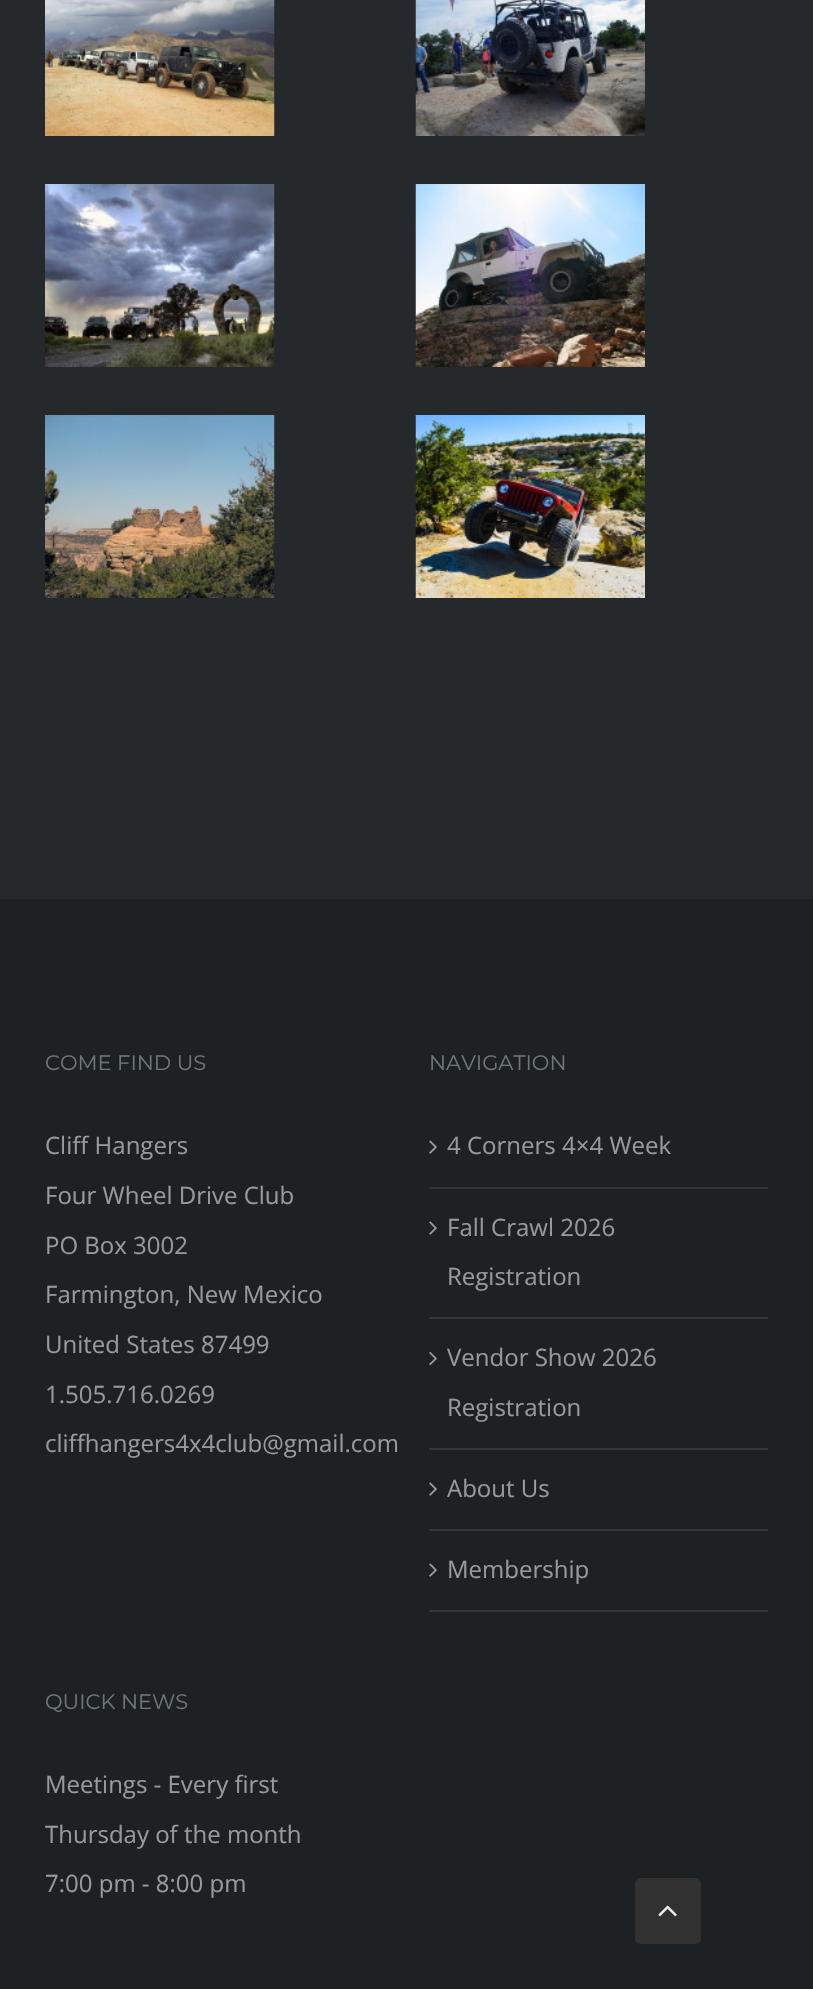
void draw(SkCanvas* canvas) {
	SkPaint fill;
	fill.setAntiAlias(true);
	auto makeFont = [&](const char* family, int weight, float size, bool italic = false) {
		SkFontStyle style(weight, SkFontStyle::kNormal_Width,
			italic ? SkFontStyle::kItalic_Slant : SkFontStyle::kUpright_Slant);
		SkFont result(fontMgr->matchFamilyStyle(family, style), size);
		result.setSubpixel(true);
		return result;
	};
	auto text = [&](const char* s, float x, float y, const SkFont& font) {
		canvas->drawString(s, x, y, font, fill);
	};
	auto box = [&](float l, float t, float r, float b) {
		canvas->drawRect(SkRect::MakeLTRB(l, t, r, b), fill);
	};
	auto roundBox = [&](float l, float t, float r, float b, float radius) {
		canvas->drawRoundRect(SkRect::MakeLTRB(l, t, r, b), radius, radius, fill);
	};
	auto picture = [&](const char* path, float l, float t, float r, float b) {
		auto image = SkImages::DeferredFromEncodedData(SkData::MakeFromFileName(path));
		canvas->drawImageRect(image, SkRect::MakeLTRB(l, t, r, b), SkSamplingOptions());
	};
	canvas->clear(0xFF25292B);
	picture("image0.png", 45, 0, 275, 136);
	picture("image1.png", 415, 0, 645, 136);
	picture("image2.png", 45, 184, 275, 367);
	picture("image3.png", 415, 184, 645, 367);
	picture("image4.png", 45, 415, 275, 598);
	picture("image5.png", 415, 415, 645, 598);
	fill.setColor(0xFF1E2123);
	box(0, 899, 813, 1989);
	fill.setColor(0xFF333638);
	box(429, 1187, 768, 1189);
	picture("image6.png", 429, 1140, 437, 1154);
	box(429, 1317, 768, 1319);
	picture("image6.png", 429, 1221, 437, 1235);
	box(429, 1448, 768, 1450);
	picture("image7.png", 429, 1352, 437, 1366);
	box(429, 1529, 768, 1531);
	picture("image6.png", 429, 1482, 437, 1496);
	box(429, 1610, 768, 1612);
	picture("image6.png", 429, 1563, 437, 1577);
	fill.setColor(0xFF313131);
	roundBox(635, 1878, 701, 1944, 6);
	picture("image8.png", 658, 1905, 677, 1917);
	auto font1 = makeFont("Montserrat", 400, 21);
	fill.setColor(0xFF6C777B);
	text("COME FIND US", 45, 1070, font1);
	auto font2 = makeFont("Open Sans", 400, 24);
	fill.setColor(0xFF999999);
	text("Cliff Hangers", 45, 1154, font2);
	text("Four Wheel Drive Club", 45, 1204, font2);
	text("PO Box 3002", 45, 1254, font2);
	text("Farmington, New Mexico", 45, 1303, font2);
	text("United States 87499", 45, 1353, font2);
	text("1.505.716.0269", 45, 1403, font2);
	text("cliffhangers4x4club@gmail.com", 45, 1452, font2);
	fill.setColor(0xFF6C777B);
	text("NAVIGATION", 429, 1070, font1);
	fill.setColor(0xFF999999);
	text("4 Corners 4×4 Week", 447, 1154, font2);
	text("Fall Crawl 2026", 447, 1236, font2);
	text("Registration", 447, 1285, font2);
	text("Vendor Show 2026", 447, 1366, font2);
	text("Registration", 447, 1416, font2);
	text("About Us", 447, 1497, font2);
	text("Membership", 447, 1578, font2);
	fill.setColor(0xFF6C777B);
	text("QUICK NEWS", 45, 1709, font1);
	fill.setColor(0xFF999999);
	text("Meetings - Every first", 45, 1793, font2);
	text("Thursday of the month", 45, 1843, font2);
	text("7:00 pm - 8:00 pm", 45, 1892, font2);
}
